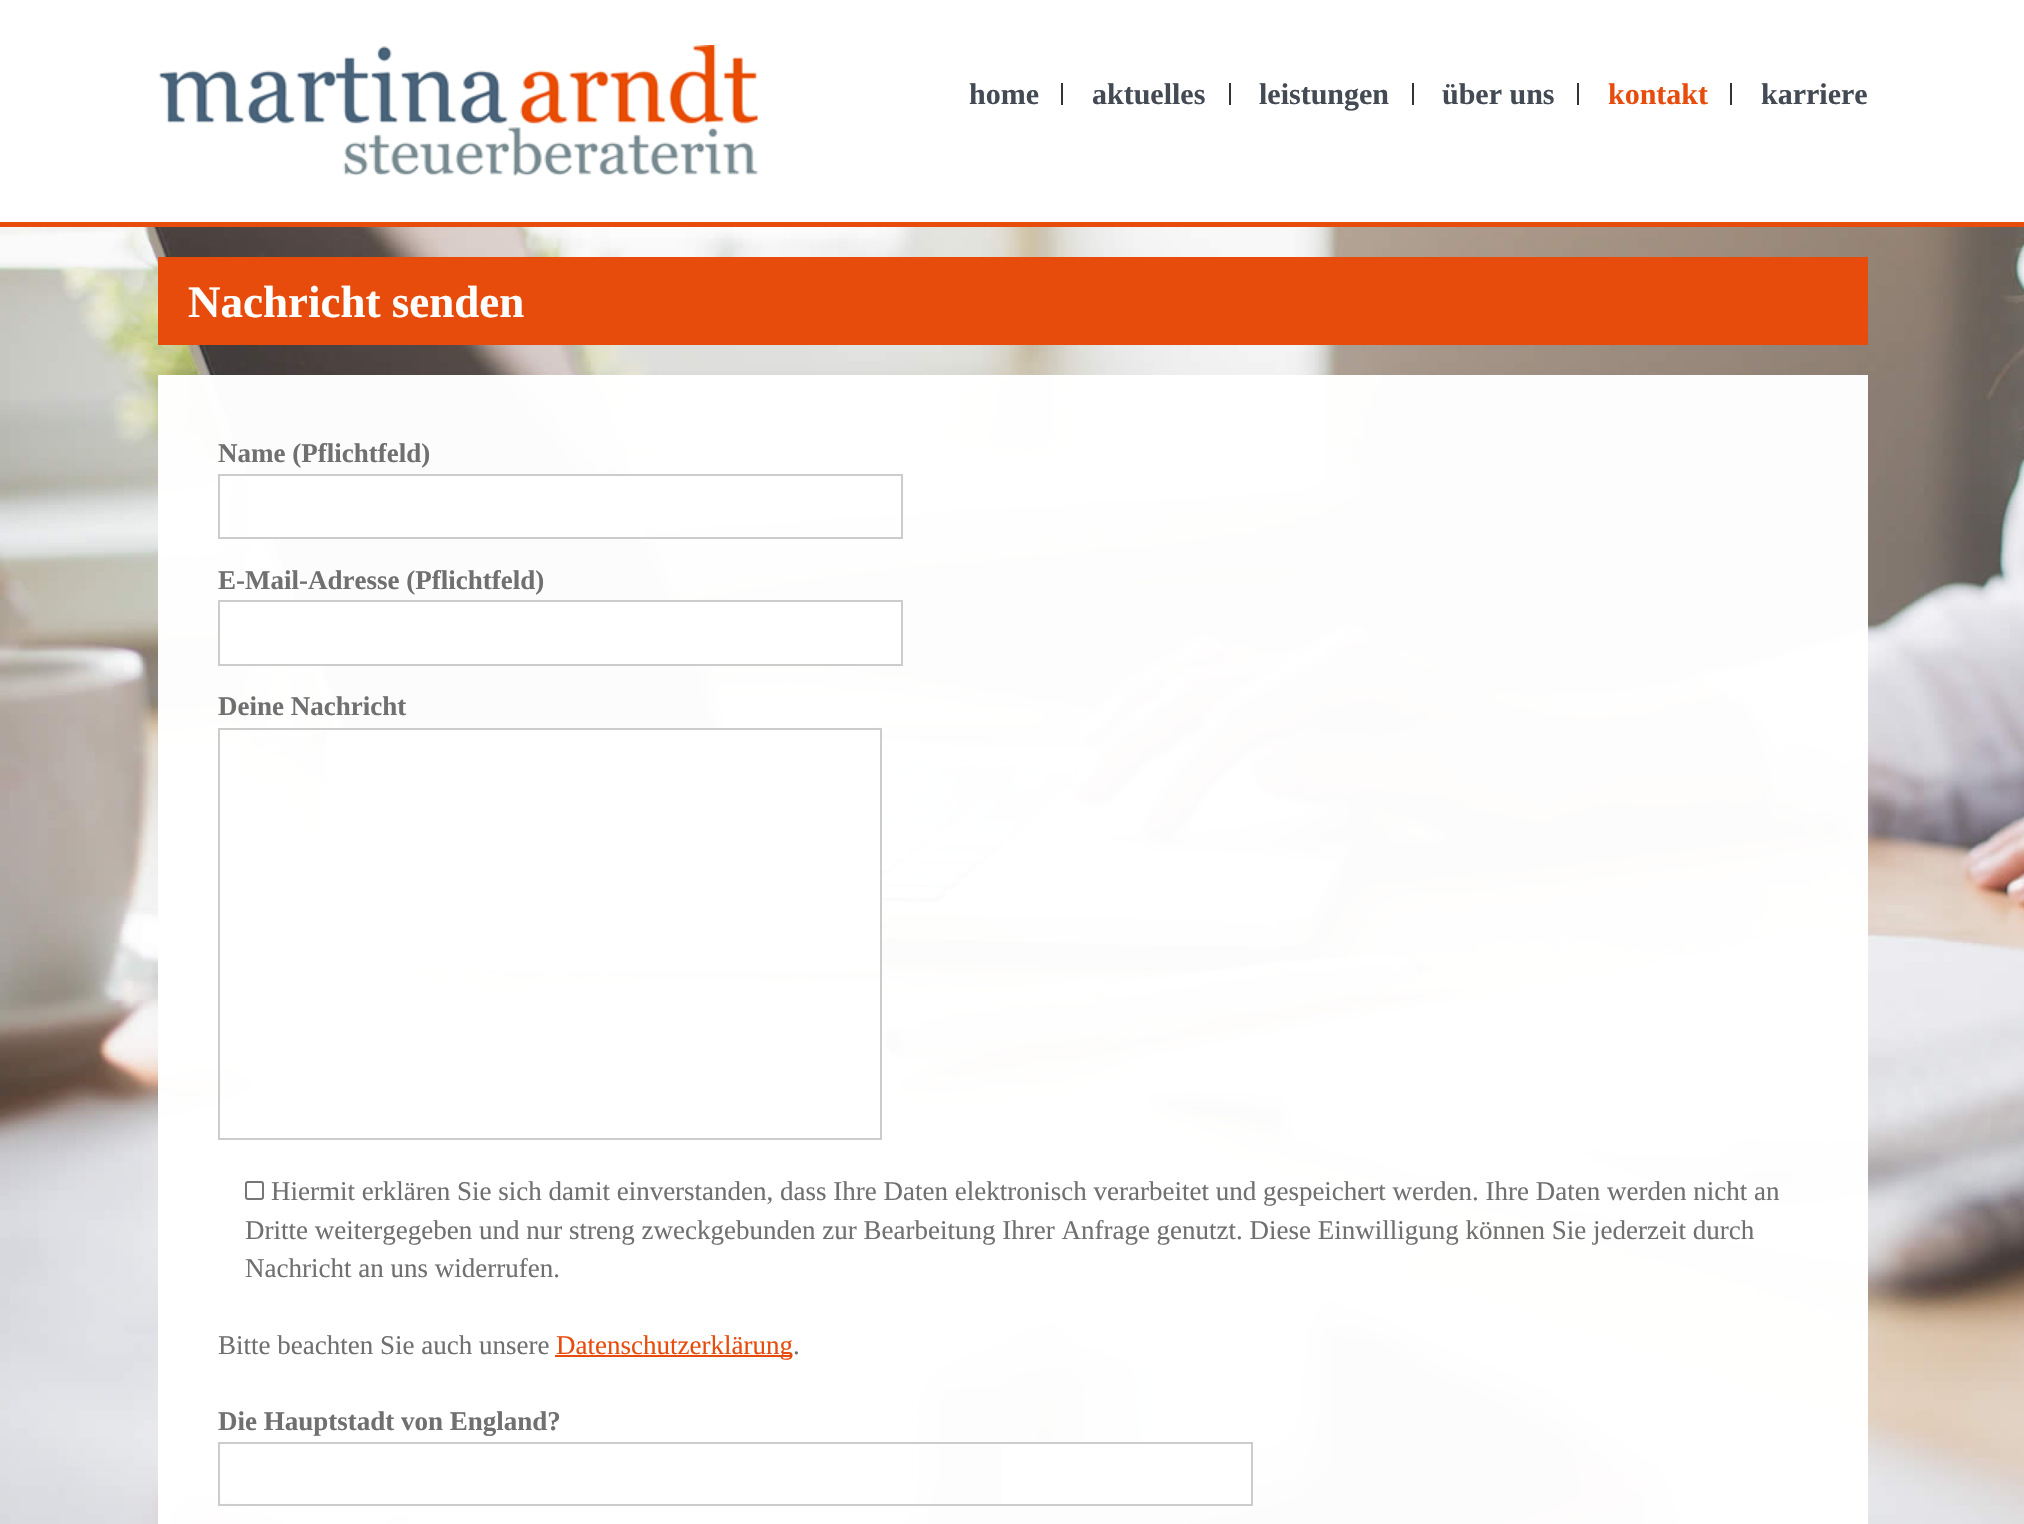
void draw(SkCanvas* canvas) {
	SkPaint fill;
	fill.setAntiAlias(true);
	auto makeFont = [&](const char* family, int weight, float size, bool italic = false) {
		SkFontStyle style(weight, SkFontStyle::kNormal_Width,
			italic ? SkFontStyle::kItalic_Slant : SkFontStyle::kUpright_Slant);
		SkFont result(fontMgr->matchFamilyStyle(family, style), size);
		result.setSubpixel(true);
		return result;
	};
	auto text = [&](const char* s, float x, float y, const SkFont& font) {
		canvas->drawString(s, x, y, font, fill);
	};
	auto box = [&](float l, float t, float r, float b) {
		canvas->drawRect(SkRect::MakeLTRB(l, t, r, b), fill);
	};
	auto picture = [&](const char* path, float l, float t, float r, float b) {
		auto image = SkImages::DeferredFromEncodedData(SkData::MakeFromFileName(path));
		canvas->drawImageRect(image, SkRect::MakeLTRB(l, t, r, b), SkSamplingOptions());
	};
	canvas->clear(0xFFFFFFFF);
	picture("image0.png", 0, 227, 2024, 1524);
	fill.setColor(0xFFE74C0C);
	box(0, 222, 2024, 227);
	picture("image1.png", 158, 45, 758, 176);
	fill.setColor(0xFF333333);
	box(1061, 83, 1063, 105);
	box(1229, 83, 1231, 105);
	box(1412, 83, 1414, 105);
	box(1577, 83, 1579, 105);
	box(1730, 83, 1732, 105);
	fill.setColor(0xFFE74C0C);
	box(158, 257, 1868, 345);
	fill.setColor(0xFAFFFFFF);
	box(158, 375, 1868, 1524);
	fill.setColor(0xFFFFFFFF);
	box(248, 476, 647, 537);
	fill.setStyle(SkPaint::kStroke_Style);
	fill.setStrokeWidth(2);
	fill.setColor(0xFFCCCCCC);
	canvas->drawRect(SkRect::MakeLTRB(219, 475, 902, 538), fill);
	fill.setStyle(SkPaint::kFill_Style);
	fill.setColor(0xFFFFFFFF);
	canvas->drawRect(SkRect::MakeLTRB(219, 601, 902, 665), fill);
	fill.setStyle(SkPaint::kStroke_Style);
	fill.setColor(0xFFCCCCCC);
	canvas->drawRect(SkRect::MakeLTRB(219, 601, 902, 665), fill);
	fill.setStyle(SkPaint::kFill_Style);
	fill.setColor(0xFFFFFFFF);
	box(326, 730, 880, 971);
	fill.setStyle(SkPaint::kStroke_Style);
	fill.setColor(0xFFCCCCCC);
	canvas->drawRect(SkRect::MakeLTRB(219, 729, 881, 1139), fill);
	fill.setColor(0xFF767676);
	canvas->drawRoundRect(SkRect::MakeLTRB(246, 1182, 263, 1199), 2, 2, fill);
	fill.setStyle(SkPaint::kFill_Style);
	fill.setColor(0xFFE74C0C);
	box(555, 1355, 792, 1357);
	fill.setColor(0xFFFFFFFF);
	box(1001, 1444, 1251, 1504);
	fill.setStyle(SkPaint::kStroke_Style);
	fill.setColor(0xFFCCCCCC);
	canvas->drawRect(SkRect::MakeLTRB(219, 1443, 1252, 1505), fill);
	auto font1 = makeFont("Liberation Serif", 700, 30);
	fill.setStyle(SkPaint::kFill_Style);
	fill.setColor(0xFF434A54);
	text("home", 969, 104, font1);
	text("aktuelles", 1092, 104, font1);
	text("leistungen", 1259, 104, font1);
	text("über uns", 1442, 104, font1);
	fill.setColor(0xFFE74C0C);
	text("kontakt", 1608, 104, font1);
	fill.setColor(0xFF434A54);
	text("karriere", 1761, 104, font1);
	auto font2 = makeFont("Liberation Serif", 700, 45);
	fill.setColor(0xFFFFFFFF);
	text("Nachricht senden", 188, 317, font2);
	auto font3 = makeFont("Liberation Serif", 700, 27);
	fill.setColor(0xFF707070);
	text("Name (Pflichtfeld)", 218, 462, font3);
	text("E-Mail-Adresse (Pflichtfeld)", 218, 589, font3);
	text("Deine Nachricht", 218, 715, font3);
	auto font4 = makeFont("Liberation Serif", 400, 27);
	text("Hiermit erklären Sie sich damit einverstanden, dass Ihre Daten elektronisch verarbeitet und gespeichert werden. Ihre Daten werden nicht an", 271, 1200, font4);
	text("Dritte weitergegeben und nur streng zweckgebunden zur Bearbeitung Ihrer Anfrage genutzt. Diese Einwilligung können Sie jederzeit durch", 245, 1239, font4);
	text("Nachricht an uns widerrufen.", 245, 1277, font4);
	text("Bitte beachten Sie auch unsere", 218, 1354, font4);
	fill.setColor(0xFFE74C0C);
	text("Datenschutzerklärung", 556, 1354, font4);
	fill.setColor(0xFF707070);
	text(".", 793, 1354, font4);
	text("Die Hauptstadt von England?", 218, 1430, font3);
}
